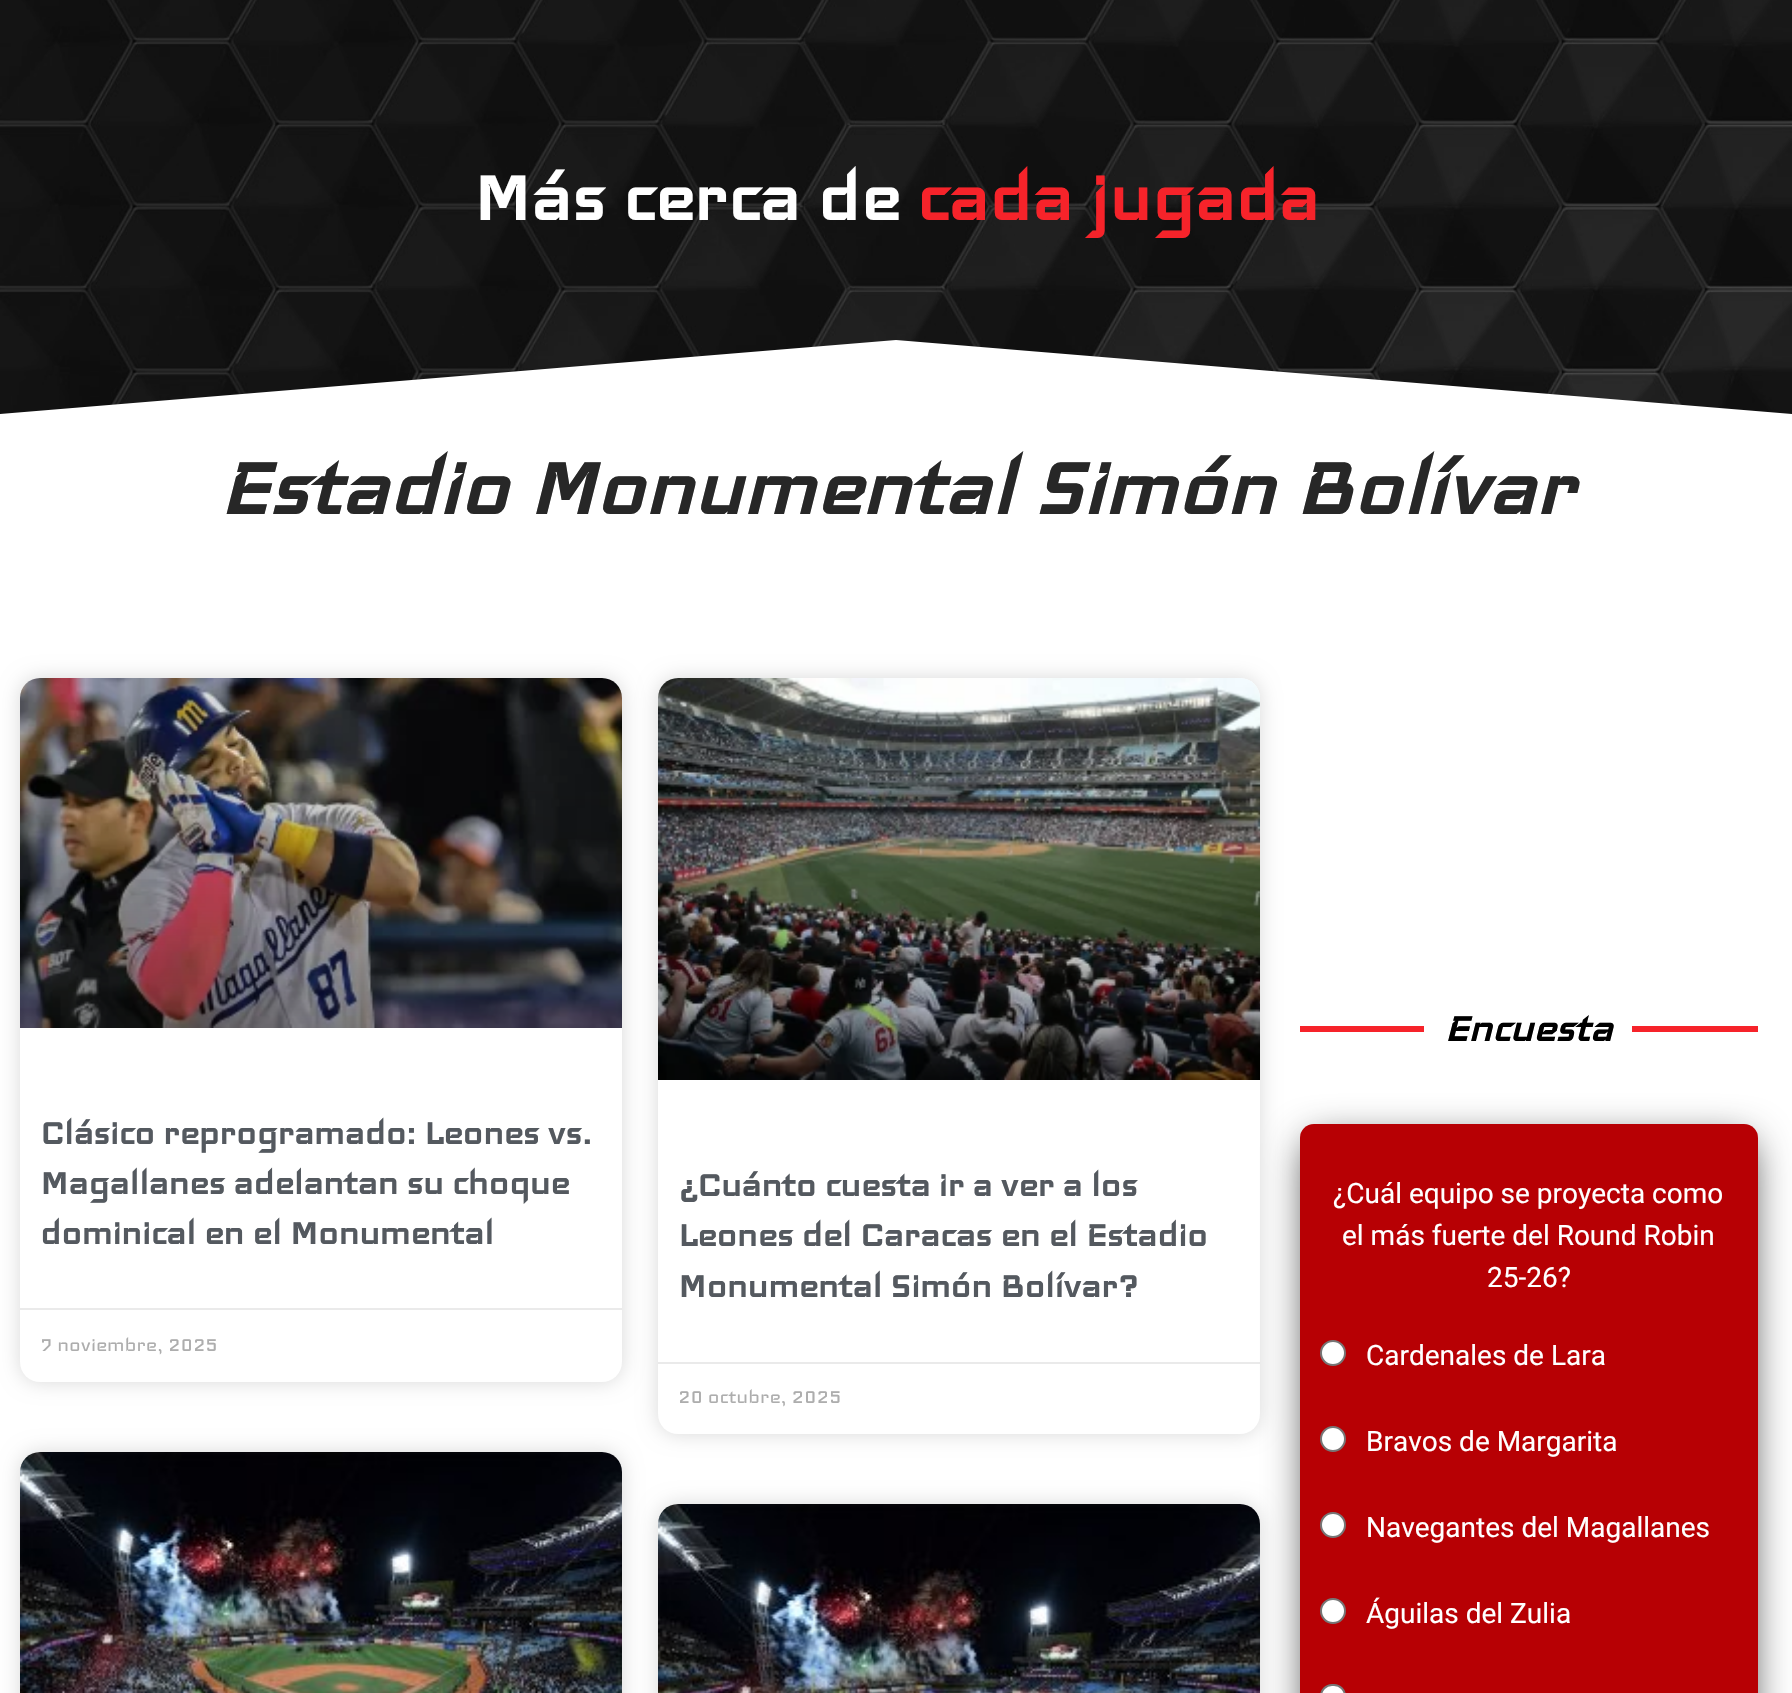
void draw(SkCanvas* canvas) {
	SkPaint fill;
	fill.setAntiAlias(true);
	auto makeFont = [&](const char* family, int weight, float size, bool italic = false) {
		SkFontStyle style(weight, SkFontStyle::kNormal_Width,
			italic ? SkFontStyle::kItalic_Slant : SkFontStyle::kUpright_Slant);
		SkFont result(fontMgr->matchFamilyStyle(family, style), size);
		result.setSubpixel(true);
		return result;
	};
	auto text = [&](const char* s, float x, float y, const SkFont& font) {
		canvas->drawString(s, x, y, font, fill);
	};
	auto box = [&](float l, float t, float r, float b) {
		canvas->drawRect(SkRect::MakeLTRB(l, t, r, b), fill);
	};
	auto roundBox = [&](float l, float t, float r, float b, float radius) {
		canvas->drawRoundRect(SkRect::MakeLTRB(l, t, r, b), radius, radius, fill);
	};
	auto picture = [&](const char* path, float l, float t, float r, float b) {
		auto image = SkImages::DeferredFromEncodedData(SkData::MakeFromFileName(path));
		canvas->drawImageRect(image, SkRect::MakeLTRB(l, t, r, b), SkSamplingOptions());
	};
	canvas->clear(0xFFFFFFFF);
	picture("image0.png", 0, 0, 1792, 414);
	fill.setColor(0xFFFFFFFF);
	canvas->drawPath(SkPathBuilder().moveTo(896, 340).lineTo(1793, 414).lineTo(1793, 419).lineTo(-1, 419).lineTo(-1, 414).close().detach(), fill);
	fill.setColor(0x26000000);
	fill.setMaskFilter(SkMaskFilter::MakeBlur(kNormal_SkBlurStyle, 10));
	canvas->drawRoundRect(SkRect::MakeLTRB(20, 678, 622, 1382), 20, 20, fill);
	fill.setMaskFilter(nullptr);
	fill.setColor(0xFFFFFFFF);
	roundBox(20, 678, 622, 1382, 20);
	picture("image1.png", 20, 678, 622, 1028);
	{
		const SkColor colors[] = {0x59000000, 0x00000000};
		const float stops[] = {0, 0.75f};
		const SkPoint ends[] = {{321, 1028}, {321, 678}};
		fill.setShader(SkGradientShader::MakeLinear(ends, colors, stops, 2, SkTileMode::kClamp));
		fill.setAlpha(255);
	}
	box(20, 782, 622, 1028);
	fill.setShader(nullptr);
	fill.setColor(0xFFEAEAEA);
	box(20, 1308, 622, 1310);
	fill.setColor(0x26000000);
	fill.setMaskFilter(SkMaskFilter::MakeBlur(kNormal_SkBlurStyle, 10));
	canvas->drawRoundRect(SkRect::MakeLTRB(658, 678, 1260, 1434), 20, 20, fill);
	fill.setMaskFilter(nullptr);
	fill.setColor(0xFFFFFFFF);
	roundBox(658, 678, 1260, 1434, 20);
	picture("image2.png", 658, 678, 1260, 1080);
	{
		const SkColor colors[] = {0x59000000, 0x00000000};
		const float stops[] = {0, 0.75f};
		const SkPoint ends[] = {{959, 1080}, {959, 678}};
		fill.setShader(SkGradientShader::MakeLinear(ends, colors, stops, 2, SkTileMode::kClamp));
		fill.setAlpha(255);
	}
	box(658, 797, 1260, 1080);
	fill.setShader(nullptr);
	fill.setColor(0xFFEAEAEA);
	box(658, 1362, 1260, 1364);
	fill.setColor(0x26000000);
	fill.setMaskFilter(SkMaskFilter::MakeBlur(kNormal_SkBlurStyle, 10));
	canvas->drawRoundRect(SkRect::MakeLTRB(20, 1452, 622, 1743), 20, 20, fill);
	fill.setMaskFilter(nullptr);
	fill.setColor(0xFFFFFFFF);
	roundBox(20, 1452, 622, 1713, 20);
	picture("image3.png", 20, 1452, 622, 1693);
	{
		const SkColor colors[] = {0x59000000, 0x00000000};
		const float stops[] = {0, 0.75f};
		const SkPoint ends[] = {{321, 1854}, {321, 1452}};
		fill.setShader(SkGradientShader::MakeLinear(ends, colors, stops, 2, SkTileMode::kClamp));
		fill.setAlpha(255);
	}
	box(20, 1571, 622, 1693);
	fill.setShader(nullptr);
	fill.setColor(0x26000000);
	fill.setMaskFilter(SkMaskFilter::MakeBlur(kNormal_SkBlurStyle, 10));
	canvas->drawRoundRect(SkRect::MakeLTRB(658, 1504, 1260, 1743), 20, 20, fill);
	fill.setMaskFilter(nullptr);
	fill.setColor(0xFFFFFFFF);
	roundBox(658, 1504, 1260, 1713, 20);
	picture("image4.png", 658, 1504, 1260, 1693);
	{
		const SkColor colors[] = {0x59000000, 0x00000000};
		const float stops[] = {0, 0.75f};
		const SkPoint ends[] = {{959, 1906}, {959, 1504}};
		fill.setShader(SkGradientShader::MakeLinear(ends, colors, stops, 2, SkTileMode::kClamp));
		fill.setAlpha(255);
	}
	box(658, 1623, 1260, 1693);
	fill.setShader(nullptr);
	fill.setColor(0xFFF6232A);
	box(1300, 1026, 1424, 1032);
	box(1632, 1026, 1758, 1032);
	fill.setColor(0xFF333333);
	fill.setMaskFilter(SkMaskFilter::MakeBlur(kNormal_SkBlurStyle, 20));
	canvas->drawRoundRect(SkRect::MakeLTRB(1308, 1142, 1750, 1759), 6, 6, fill);
	fill.setMaskFilter(nullptr);
	fill.setColor(0xFFB70004);
	roundBox(1300, 1124, 1758, 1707, 14);
	fill.setColor(0xFFFFFFFF);
	canvas->drawCircle(1333, 1353, 12, fill);
	fill.setStyle(SkPaint::kStroke_Style);
	fill.setStrokeWidth(2);
	fill.setColor(0xFF767676);
	canvas->drawCircle(1333, 1353, 12, fill);
	fill.setStyle(SkPaint::kFill_Style);
	fill.setColor(0xFFFFFFFF);
	canvas->drawCircle(1333, 1439, 12, fill);
	fill.setStyle(SkPaint::kStroke_Style);
	fill.setColor(0xFF767676);
	canvas->drawCircle(1333, 1439, 12, fill);
	fill.setStyle(SkPaint::kFill_Style);
	fill.setColor(0xFFFFFFFF);
	canvas->drawCircle(1333, 1525, 12, fill);
	fill.setStyle(SkPaint::kStroke_Style);
	fill.setColor(0xFF767676);
	canvas->drawCircle(1333, 1525, 12, fill);
	fill.setStyle(SkPaint::kFill_Style);
	fill.setColor(0xFFFFFFFF);
	canvas->drawCircle(1333, 1611, 12, fill);
	fill.setStyle(SkPaint::kStroke_Style);
	fill.setColor(0xFF767676);
	canvas->drawCircle(1333, 1611, 12, fill);
	fill.setStyle(SkPaint::kFill_Style);
	fill.setColor(0xFFFFFFFF);
	canvas->drawRoundRect(SkRect::MakeLTRB(1321, 1685, 1345, 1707), 12, 12, fill);
	fill.setStyle(SkPaint::kStroke_Style);
	fill.setColor(0xFF767676);
	canvas->drawRoundRect(SkRect::MakeLTRB(1321, 1685, 1345, 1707), 12, 12, fill);
	auto font1 = makeFont("Iceland", 700, 86);
	fill.setStyle(SkPaint::kFill_Style);
	fill.setColor(0xFFFFFFFF);
	text("Más cerca de", 473, 220, font1);
	fill.setColor(0xFFF6232A);
	text("cada jugada", 916, 220, font1);
	auto font2 = makeFont("Iceland", 700, 100, true);
	fill.setColor(0xFF272727);
	text("Estadio Monumental Simón Bolívar", 218, 514, font2);
	auto font3 = makeFont("Iceland", 700, 42);
	fill.setColor(0xFF54595F);
	text("Clásico reprogramado: Leones vs.", 40, 1144, font3);
	text("Magallanes adelantan su choque", 40, 1194, font3);
	text("dominical en el Monumental", 40, 1244, font3);
	auto font4 = makeFont("Iceland", 400, 24);
	fill.setColor(0xFFADADAD);
	text("7 noviembre, 2025", 40, 1351, font4);
	fill.setColor(0xFF54595F);
	text("¿Cuánto cuesta ir a ver a los", 678, 1196, font3);
	text("Leones del Caracas en el Estadio", 678, 1246, font3);
	text("Monumental Simón Bolívar?", 678, 1297, font3);
	fill.setColor(0xFFADADAD);
	text("20 octubre, 2025", 678, 1403, font4);
	auto font5 = makeFont("Iceland", 700, 48, true);
	fill.setColor(0xFF000000);
	text("Encuesta", 1444, 1041, font5);
	auto font6 = makeFont("Roboto", 400, 28);
	fill.setColor(0xFFFFFFFF);
	text("¿Cuál equipo se proyecta como", 1333, 1203, font6);
	text("el más fuerte del Round Robin", 1342, 1245, font6);
	text("25-26?", 1487, 1287, font6);
	text("Cardenales de Lara", 1366, 1365, font6);
	text("Bravos de Margarita", 1366, 1451, font6);
	text("Navegantes del Magallanes", 1366, 1537, font6);
	text("Águilas del Zulia", 1366, 1623, font6);
}
